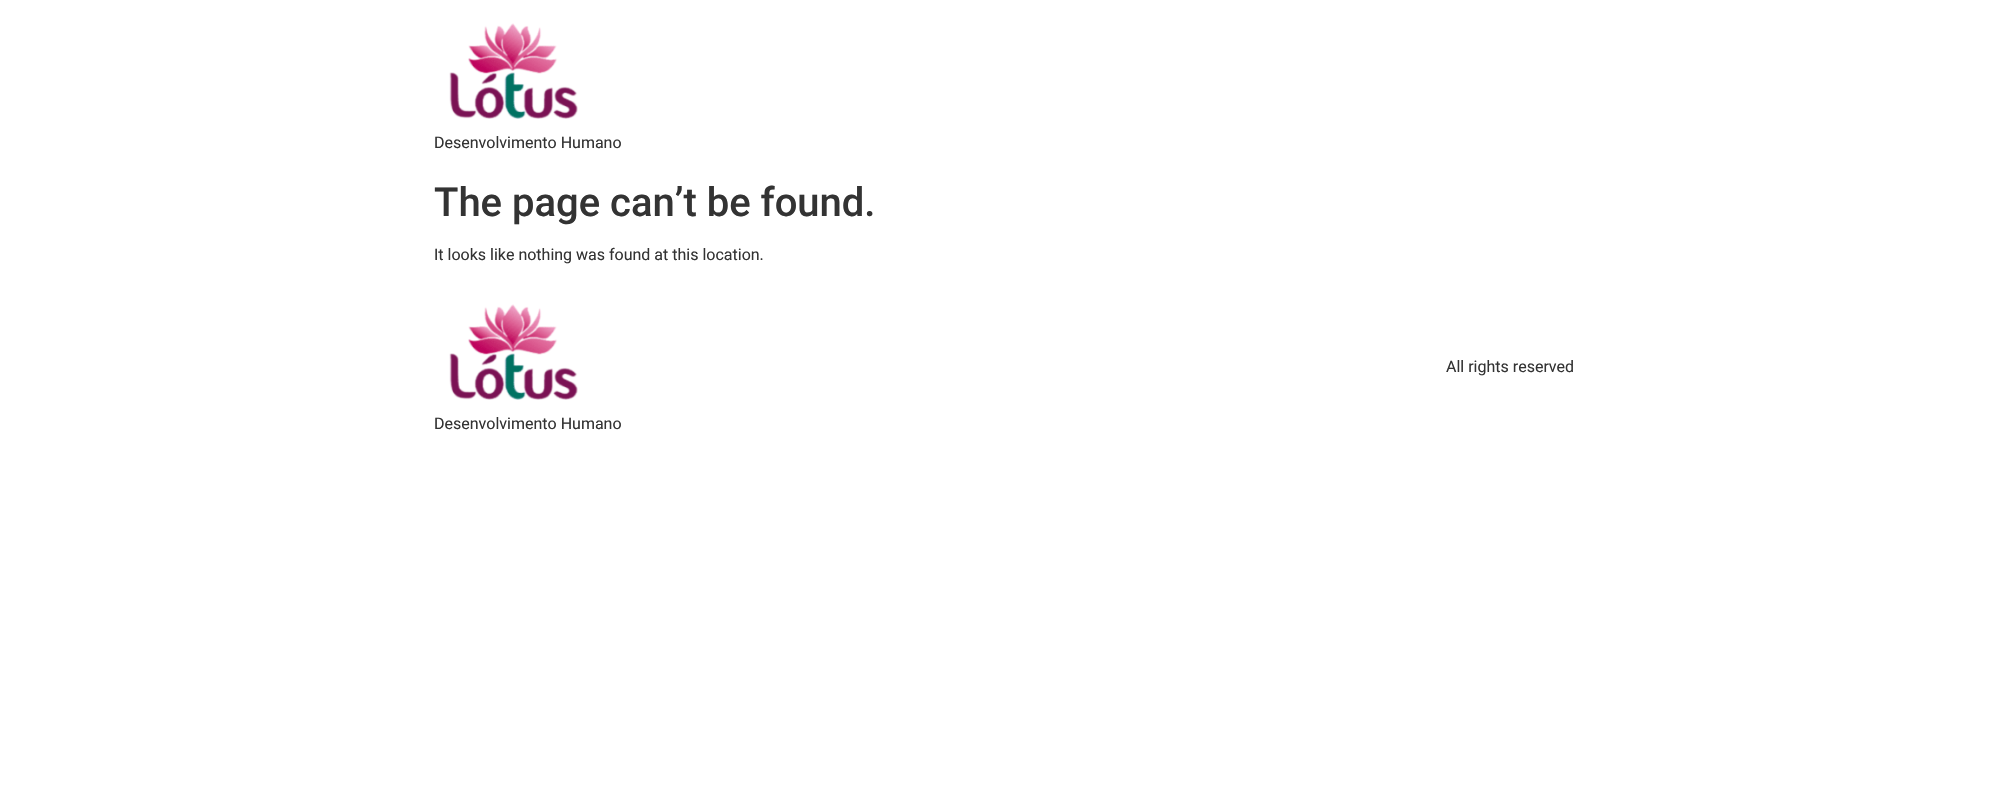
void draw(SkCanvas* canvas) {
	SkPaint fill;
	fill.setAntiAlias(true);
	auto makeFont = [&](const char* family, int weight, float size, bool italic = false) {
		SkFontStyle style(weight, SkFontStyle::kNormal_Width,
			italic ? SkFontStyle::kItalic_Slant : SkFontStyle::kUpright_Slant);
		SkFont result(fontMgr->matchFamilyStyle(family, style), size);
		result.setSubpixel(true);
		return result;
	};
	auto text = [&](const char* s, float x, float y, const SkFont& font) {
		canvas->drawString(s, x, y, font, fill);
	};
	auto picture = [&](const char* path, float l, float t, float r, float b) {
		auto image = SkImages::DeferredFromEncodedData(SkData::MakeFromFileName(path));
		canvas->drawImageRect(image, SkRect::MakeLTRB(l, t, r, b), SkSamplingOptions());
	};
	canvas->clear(0xFFFFFFFF);
	picture("image0.png", 449, 23, 578, 119);
	picture("image0.png", 449, 304, 578, 400);
	auto font1 = makeFont("Roboto", 400, 16);
	fill.setColor(0xFF333333);
	text("Desenvolvimento Humano", 434, 148, font1);
	auto font2 = makeFont("Roboto", 500, 40);
	text("The page can’t be found.", 434, 216, font2);
	text("It looks like nothing was found at this location.", 434, 260, font1);
	text("All rights reserved", 1446, 372, font1);
	text("Desenvolvimento Humano", 434, 429, font1);
}
